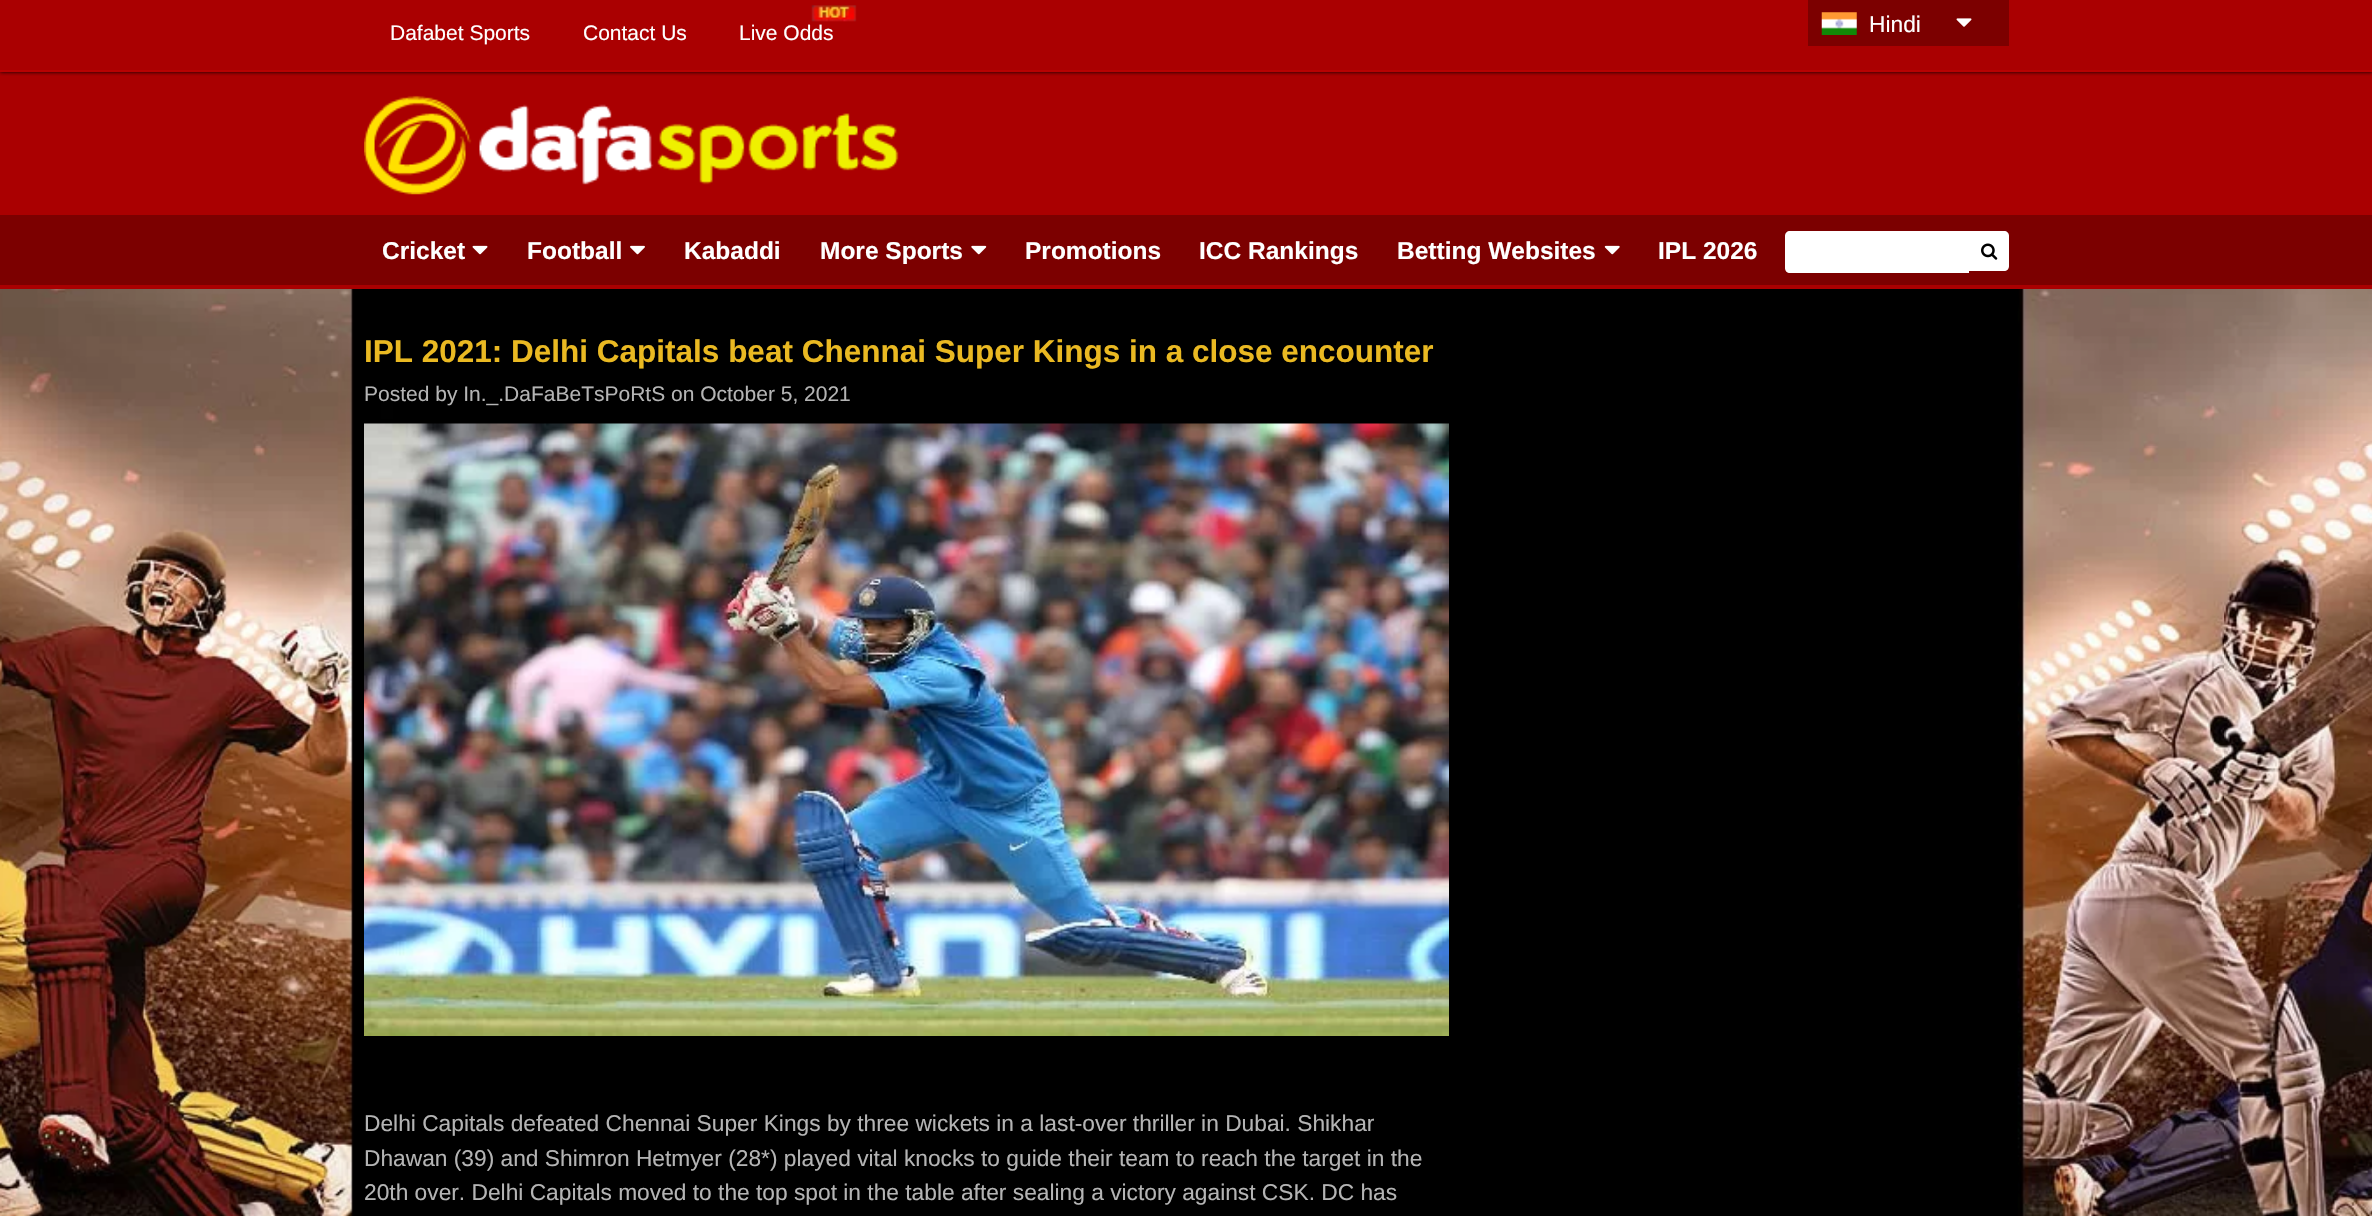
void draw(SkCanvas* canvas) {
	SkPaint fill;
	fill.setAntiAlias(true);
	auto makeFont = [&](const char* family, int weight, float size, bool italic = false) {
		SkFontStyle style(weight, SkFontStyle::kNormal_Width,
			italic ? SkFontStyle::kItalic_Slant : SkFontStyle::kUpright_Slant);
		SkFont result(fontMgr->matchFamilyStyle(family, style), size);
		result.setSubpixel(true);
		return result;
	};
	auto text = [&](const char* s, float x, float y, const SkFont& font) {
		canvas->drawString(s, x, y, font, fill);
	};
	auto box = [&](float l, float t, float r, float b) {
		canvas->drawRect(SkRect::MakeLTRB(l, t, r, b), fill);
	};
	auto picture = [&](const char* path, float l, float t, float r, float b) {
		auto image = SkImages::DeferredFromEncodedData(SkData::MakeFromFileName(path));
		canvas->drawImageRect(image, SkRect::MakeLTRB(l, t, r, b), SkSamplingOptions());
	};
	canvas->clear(0xFFFFFFFF);
	picture("image0.png", 0, 289, 2372, 1216);
	fill.setColor(0xFFAA0001);
	box(0, 0, 2372, 289);
	canvas->save();
	canvas->clipRect(SkRect::MakeLTRB(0, 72, 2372, 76));
	fill.setColor(0xFF000000);
	fill.setMaskFilter(SkMaskFilter::MakeBlur(kNormal_SkBlurStyle, 2));
	canvas->drawRect(SkRect::MakeLTRB(0, 0, 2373, 72), fill);
	fill.setMaskFilter(nullptr);
	canvas->restore();
	fill.setColor(0xFFB80102);
	box(0, 70, 2372, 72);
	picture("image1.png", 811, 5, 857, 22);
	fill.setColor(0xFF7C0000);
	box(1808, 0, 2009, 46);
	picture("image2.png", 1821, 12, 1857, 35);
	picture("image3.png", 1956, 18, 1972, 27);
	picture("image4.png", 364, 95, 899, 195);
	box(0, 215, 2372, 285);
	picture("image5.png", 472, 245, 488, 255);
	picture("image6.png", 630, 245, 645, 255);
	picture("image7.png", 971, 245, 987, 255);
	picture("image8.png", 1604, 245, 1620, 255);
	fill.setColor(0xFFFFFFFF);
	canvas->drawPath(SkPathBuilder().moveTo(1790, 231).lineTo(1969, 231).lineTo(1969, 273).lineTo(1790, 273).cubicTo(1787, 273, 1785, 271, 1785, 268).lineTo(1785, 236).cubicTo(1785, 233, 1787, 231, 1790, 231).close().detach(), fill);
	canvas->drawPath(SkPathBuilder().moveTo(1969, 231).lineTo(2004, 231).cubicTo(2007, 231, 2009, 233, 2009, 236).lineTo(2009, 266).cubicTo(2009, 269, 2007, 271, 2004, 271).lineTo(1969, 271).close().detach(), fill);
	picture("image9.png", 1981, 243, 1998, 260);
	picture("image10.png", 364, 423, 1449, 1036);
	auto font1 = makeFont("Liberation Sans", 400, 21);
	text("Dafabet Sports", 390, 40, font1);
	text("Contact Us", 583, 40, font1);
	text("Live Odds", 739, 40, font1);
	auto font2 = makeFont("Liberation Sans", 400, 22.75f);
	text("Hindi", 1869, 32, font2);
	auto font3 = makeFont("Liberation Sans", 700, 24.5f);
	text("Cricket", 382, 259, font3);
	text("Football", 527, 259, font3);
	text("Kabaddi", 684, 259, font3);
	text("More Sports", 820, 259, font3);
	text("Promotions", 1025, 259, font3);
	text("ICC Rankings", 1199, 259, font3);
	text("Betting Websites", 1397, 259, font3);
	text("IPL 2026", 1658, 259, font3);
	auto font4 = makeFont("Liberation Sans", 700, 31.5f);
	fill.setColor(0xFFEAB922);
	text("IPL 2021: Delhi Capitals beat Chennai Super Kings in a close encounter", 364, 362, font4);
	fill.setColor(0xFFB4B4B4);
	text("Posted by In._.DaFaBeTsPoRtS on October 5, 2021", 364, 401, font1);
	text("Delhi Capitals defeated Chennai Super Kings by three wickets in a last-over thriller in Dubai. Shikhar", 364, 1131, font2);
	text("Dhawan (39) and Shimron Hetmyer (28*) played vital knocks to guide their team to reach the target in the", 364, 1166, font2);
	text("20th over. Delhi Capitals moved to the top spot in the table after sealing a victory against CSK. DC has", 364, 1200, font2);
}
